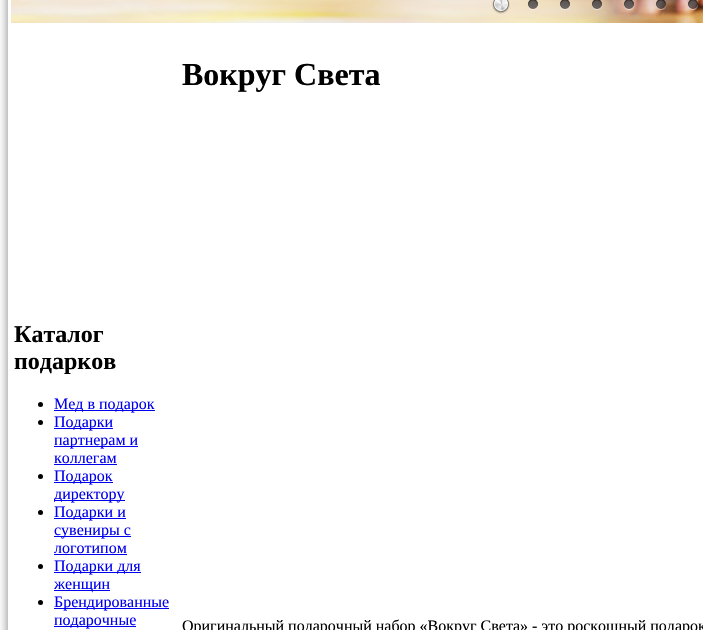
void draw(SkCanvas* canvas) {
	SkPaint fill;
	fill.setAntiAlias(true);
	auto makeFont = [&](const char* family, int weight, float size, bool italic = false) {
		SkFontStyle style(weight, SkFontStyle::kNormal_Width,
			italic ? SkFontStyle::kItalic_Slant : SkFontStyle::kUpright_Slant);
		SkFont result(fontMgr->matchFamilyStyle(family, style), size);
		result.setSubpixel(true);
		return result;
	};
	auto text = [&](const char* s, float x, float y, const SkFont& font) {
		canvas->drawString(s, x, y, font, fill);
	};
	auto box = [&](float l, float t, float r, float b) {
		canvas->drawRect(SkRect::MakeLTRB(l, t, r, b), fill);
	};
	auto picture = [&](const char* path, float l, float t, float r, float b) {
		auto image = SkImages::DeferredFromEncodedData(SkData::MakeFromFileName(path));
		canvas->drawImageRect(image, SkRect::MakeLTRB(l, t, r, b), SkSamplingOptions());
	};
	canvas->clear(0xFFFFFFFF);
	canvas->save();
	canvas->clipRect(SkRect::MakeLTRB(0, 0, 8, 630));
	fill.setColor(0x80000000);
	fill.setMaskFilter(SkMaskFilter::MakeBlur(kNormal_SkBlurStyle, 5));
	canvas->drawRect(SkRect::MakeLTRB(8, -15, 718, 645), fill);
	fill.setMaskFilter(nullptr);
	canvas->restore();
	picture("image0.png", 11, 0, 703, 23);
	picture("image1.png", 492, 0, 510, 14);
	picture("image2.png", 528, 0, 538, 10);
	picture("image3.png", 560, 0, 570, 10);
	picture("image4.png", 592, 0, 602, 10);
	picture("image5.png", 624, 0, 634, 10);
	picture("image6.png", 656, 0, 666, 10);
	picture("image7.png", 688, 0, 698, 10);
	fill.setColor(0xFF000000);
	canvas->drawCircle(40.5f, 404.5f, 2.5f, fill);
	fill.setColor(0xFF0000EE);
	box(54, 410, 155, 411);
	fill.setColor(0xFF000000);
	canvas->drawCircle(40.5f, 422.5f, 2.5f, fill);
	fill.setColor(0xFF0000EE);
	box(54, 428, 113, 429);
	box(54, 446, 138, 447);
	box(54, 464, 117, 465);
	fill.setColor(0xFF000000);
	canvas->drawCircle(40.5f, 476.5f, 2.5f, fill);
	fill.setColor(0xFF0000EE);
	box(54, 482, 113, 483);
	box(54, 500, 125, 501);
	fill.setColor(0xFF000000);
	canvas->drawCircle(40.5f, 512.5f, 2.5f, fill);
	fill.setColor(0xFF0000EE);
	box(54, 518, 126, 519);
	box(54, 536, 131, 537);
	box(54, 554, 127, 555);
	fill.setColor(0xFF000000);
	canvas->drawCircle(40.5f, 566.5f, 2.5f, fill);
	fill.setColor(0xFF0000EE);
	box(54, 572, 141, 573);
	box(54, 590, 110, 591);
	fill.setColor(0xFF000000);
	canvas->drawCircle(40.5f, 602.5f, 2.5f, fill);
	fill.setColor(0xFF0000EE);
	box(54, 608, 169, 609);
	box(54, 626, 136, 627);
	auto font1 = makeFont("Liberation Serif", 700, 24);
	fill.setColor(0xFF000000);
	text("Каталог", 14, 342, font1);
	text("подарков", 14, 369, font1);
	auto font2 = makeFont("Liberation Serif", 400, 16);
	fill.setColor(0xFF0000EE);
	text("Мед в подарок", 54, 409, font2);
	text("Подарки", 54, 427, font2);
	text("партнерам и", 54, 445, font2);
	text("коллегам", 54, 463, font2);
	text("Подарок", 54, 481, font2);
	text("директору", 54, 499, font2);
	text("Подарки и", 54, 517, font2);
	text("сувениры с", 54, 535, font2);
	text("логотипом", 54, 553, font2);
	text("Подарки для", 54, 571, font2);
	text("женщин", 54, 589, font2);
	text("Брендированные", 54, 607, font2);
	text("подарочные", 54, 625, font2);
	auto font3 = makeFont("Liberation Serif", 700, 32);
	fill.setColor(0xFF000000);
	text("Вокруг Света", 182, 85, font3);
	text("Оригинальный подарочный набор «Вокруг Света» - это роскошный подарок", 182, 631, font2);
}
